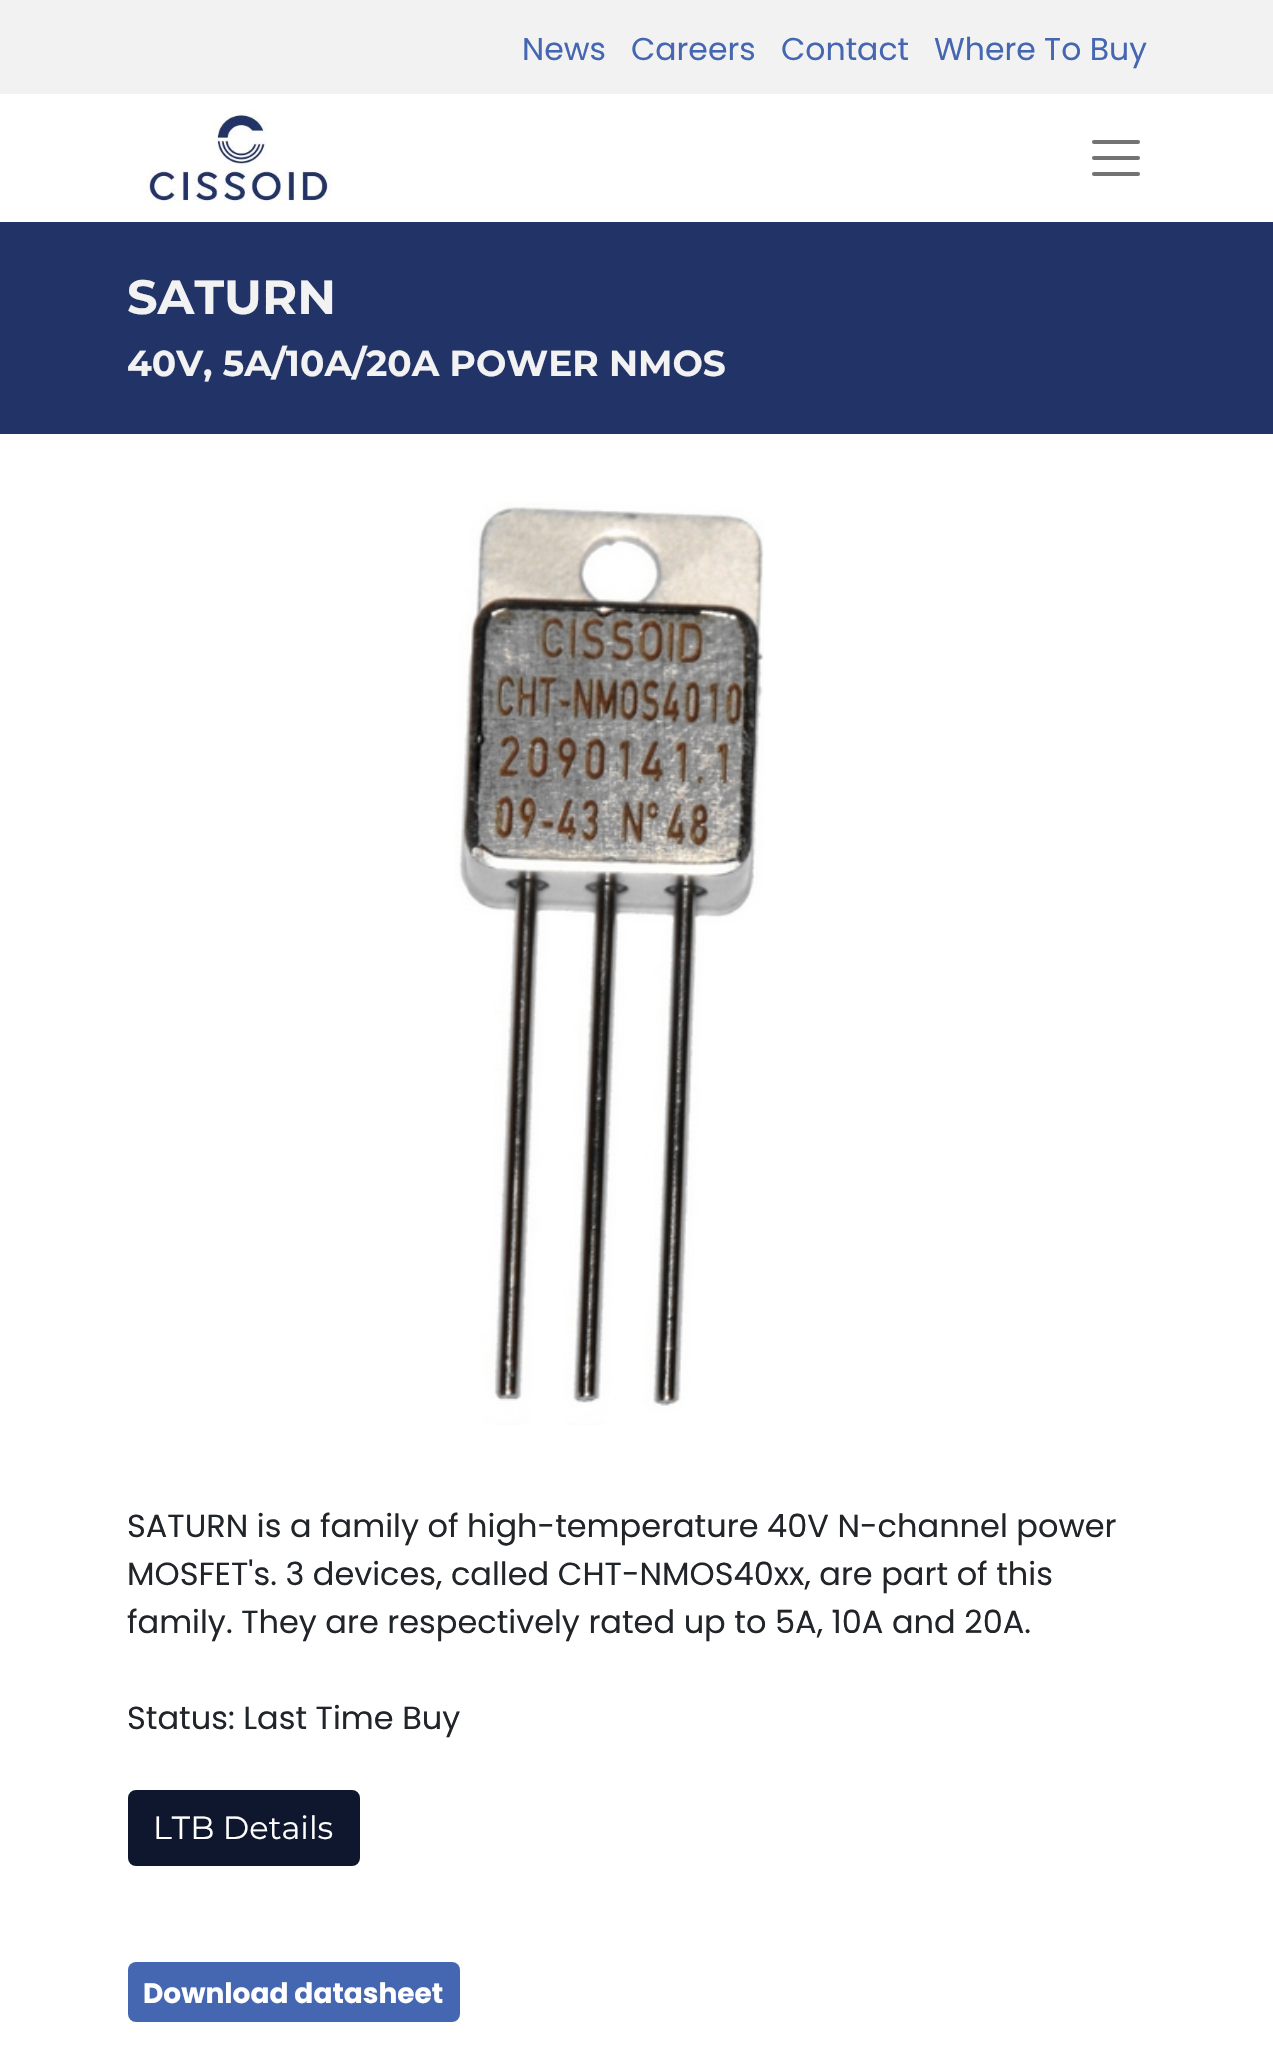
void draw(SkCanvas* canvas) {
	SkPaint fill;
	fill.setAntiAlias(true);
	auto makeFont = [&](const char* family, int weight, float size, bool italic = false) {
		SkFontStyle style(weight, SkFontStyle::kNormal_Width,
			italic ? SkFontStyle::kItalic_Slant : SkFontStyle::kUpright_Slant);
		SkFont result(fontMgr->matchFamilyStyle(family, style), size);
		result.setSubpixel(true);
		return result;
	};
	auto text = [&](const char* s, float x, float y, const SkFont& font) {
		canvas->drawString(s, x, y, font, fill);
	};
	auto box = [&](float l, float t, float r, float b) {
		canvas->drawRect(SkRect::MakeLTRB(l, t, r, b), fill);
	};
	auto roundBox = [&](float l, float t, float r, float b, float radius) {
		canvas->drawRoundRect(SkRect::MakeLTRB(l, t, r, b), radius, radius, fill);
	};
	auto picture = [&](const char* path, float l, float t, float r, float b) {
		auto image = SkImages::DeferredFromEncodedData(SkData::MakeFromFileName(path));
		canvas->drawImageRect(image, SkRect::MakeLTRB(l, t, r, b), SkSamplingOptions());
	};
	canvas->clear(0xFFFFFFFF);
	fill.setColor(0xFFF2F2F2);
	box(0, 0, 1273, 94);
	picture("image0.png", 140, 110, 332, 206);
	fill.setStyle(SkPaint::kStroke_Style);
	fill.setStrokeWidth(4);
	fill.setStrokeCap(SkPaint::kRound_Cap);
	fill.setColor(0xFF737373);
	canvas->drawPath(SkPathBuilder().moveTo(1094, 142).lineTo(1138, 142).moveTo(1094, 158).lineTo(1138, 158).moveTo(1094, 174).lineTo(1138, 174).detach(), fill);
	fill.setStyle(SkPaint::kFill_Style);
	fill.setColor(0xFF223368);
	box(0, 222, 1273, 434);
	picture("image1.png", 455, 501, 764, 1425);
	fill.setColor(0xFF0F172E);
	canvas->drawRoundRect(SkRect::MakeLTRB(129, 1791, 359, 1865), 7, 7, fill);
	fill.setStyle(SkPaint::kStroke_Style);
	fill.setStrokeWidth(2);
	fill.setStrokeCap(SkPaint::kButt_Cap);
	canvas->drawRoundRect(SkRect::MakeLTRB(129, 1791, 359, 1865), 7, 7, fill);
	fill.setStyle(SkPaint::kFill_Style);
	fill.setColor(0xFF4567B1);
	roundBox(128, 1962, 460, 2022, 8);
	auto font1 = makeFont("Poppins", 400, 31.5f);
	text("News", 522, 60, font1);
	text("Careers", 631, 60, font1);
	text("Contact", 781, 60, font1);
	text("Where To Buy", 934, 60, font1);
	auto font2 = makeFont("Montserrat", 700, 48);
	fill.setColor(0xFFF2F2F2);
	text("SATURN", 127, 314, font2);
	auto font3 = makeFont("Montserrat", 700, 36);
	text("40V, 5A/10A/20A POWER NMOS", 127, 376, font3);
	auto font4 = makeFont("Poppins", 400, 32);
	fill.setColor(0xFF212529);
	text("SATURN is a family of high-temperature 40V N-channel power", 127, 1537, font4);
	text("MOSFET's. 3 devices, called CHT-NMOS40xx, are part of this", 127, 1585, font4);
	text("family. They are respectively rated up to 5A, 10A and 20A.", 127, 1633, font4);
	text("Status: Last Time Buy", 127, 1729, font4);
	auto font5 = makeFont("Montserrat", 400, 32);
	fill.setColor(0xFFFFFFFF);
	text("LTB Details", 153, 1839, font5);
	auto font6 = makeFont("Poppins", 700, 28);
	text("Download datasheet", 143, 2003, font6);
}
